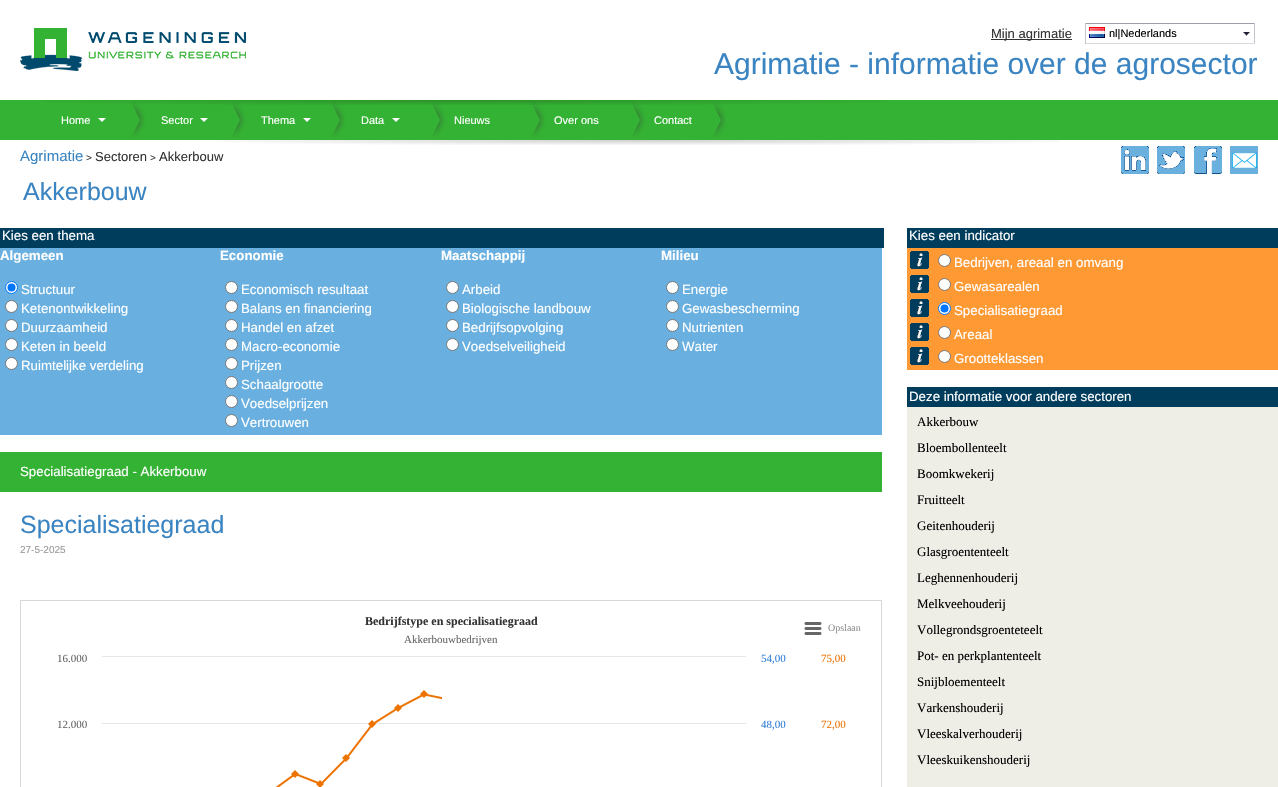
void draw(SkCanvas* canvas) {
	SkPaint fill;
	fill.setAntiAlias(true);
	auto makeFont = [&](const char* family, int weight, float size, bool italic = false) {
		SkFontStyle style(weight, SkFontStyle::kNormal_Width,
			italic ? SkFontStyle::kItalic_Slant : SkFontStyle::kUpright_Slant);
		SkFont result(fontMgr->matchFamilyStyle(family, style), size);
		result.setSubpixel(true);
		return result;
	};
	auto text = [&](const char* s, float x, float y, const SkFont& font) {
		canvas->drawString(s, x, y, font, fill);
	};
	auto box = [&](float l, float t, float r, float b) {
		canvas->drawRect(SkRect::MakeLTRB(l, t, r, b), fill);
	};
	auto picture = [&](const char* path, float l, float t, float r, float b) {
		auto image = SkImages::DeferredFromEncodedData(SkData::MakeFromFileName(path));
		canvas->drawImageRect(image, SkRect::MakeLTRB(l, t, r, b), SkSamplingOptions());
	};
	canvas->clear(0xFFFFFFFF);
	picture("image0.png", 20, 28, 246, 71);
	fill.setColor(0xFF333333);
	box(991, 39, 1072, 40);
	fill.setColor(0xFF9DA0AA);
	box(1085, 23, 1255, 24);
	fill.setColor(0xFFC2C4CB);
	box(1254, 23, 1255, 44);
	fill.setColor(0xFFD9DAE0);
	box(1085, 43, 1255, 44);
	fill.setColor(0xFFC2C4CB);
	box(1085, 23, 1086, 44);
	picture("image1.png", 1089, 27, 1105, 38);
	picture("image2.png", 1243, 32, 1250, 36);
	picture("image3.png", 217, 140, 1060, 145);
	fill.setColor(0xFF34B233);
	box(0, 100, 1278, 140);
	picture("image5.png", 131, 102, 145, 138);
	picture("image5.png", 231, 102, 245, 138);
	picture("image5.png", 331, 102, 345, 138);
	picture("image5.png", 431, 102, 445, 138);
	picture("image5.png", 531, 102, 545, 138);
	picture("image5.png", 712, 102, 726, 138);
	picture("image5.png", 631, 102, 645, 138);
	picture("image4.png", 43, 100, 886, 105);
	fill.setColor(0xFFFFFFFF);
	canvas->drawPath(SkPathBuilder().moveTo(98, 118).lineTo(106, 118).lineTo(102, 122).close().detach(), fill);
	canvas->drawPath(SkPathBuilder().moveTo(200, 118).lineTo(208, 118).lineTo(204, 122).close().detach(), fill);
	canvas->drawPath(SkPathBuilder().moveTo(303, 118).lineTo(311, 118).lineTo(307, 122).close().detach(), fill);
	canvas->drawPath(SkPathBuilder().moveTo(392, 118).lineTo(400, 118).lineTo(396, 122).close().detach(), fill);
	picture("image6.png", 1121, 146, 1149, 174);
	picture("image7.png", 1157, 146, 1185, 174);
	picture("image8.png", 1194, 146, 1222, 174);
	picture("image9.png", 1230, 146, 1258, 174);
	fill.setColor(0xFF003C5C);
	box(0, 228, 884, 248);
	fill.setColor(0xFF69B0E1);
	box(0, 248, 882, 435);
	fill.setColor(0xFFFFFFFF);
	canvas->drawCircle(11.5f, 287.5f, 6, fill);
	fill.setStyle(SkPaint::kStroke_Style);
	fill.setStrokeWidth(1);
	fill.setColor(0xFF0075FF);
	canvas->drawCircle(11.5f, 287.5f, 6, fill);
	fill.setStyle(SkPaint::kFill_Style);
	canvas->drawCircle(11.5f, 287.5f, 4, fill);
	fill.setColor(0xFFFFFFFF);
	canvas->drawCircle(231.5f, 287.5f, 6, fill);
	fill.setStyle(SkPaint::kStroke_Style);
	fill.setColor(0xFF767676);
	canvas->drawCircle(231.5f, 287.5f, 6, fill);
	fill.setStyle(SkPaint::kFill_Style);
	fill.setColor(0xFFFFFFFF);
	canvas->drawCircle(452.5f, 287.5f, 6, fill);
	fill.setStyle(SkPaint::kStroke_Style);
	fill.setColor(0xFF767676);
	canvas->drawCircle(452.5f, 287.5f, 6, fill);
	fill.setStyle(SkPaint::kFill_Style);
	fill.setColor(0xFFFFFFFF);
	canvas->drawCircle(672.5f, 287.5f, 6, fill);
	fill.setStyle(SkPaint::kStroke_Style);
	fill.setColor(0xFF767676);
	canvas->drawCircle(672.5f, 287.5f, 6, fill);
	fill.setStyle(SkPaint::kFill_Style);
	fill.setColor(0xFFFFFFFF);
	canvas->drawCircle(11.5f, 306.5f, 6, fill);
	fill.setStyle(SkPaint::kStroke_Style);
	fill.setColor(0xFF767676);
	canvas->drawCircle(11.5f, 306.5f, 6, fill);
	fill.setStyle(SkPaint::kFill_Style);
	fill.setColor(0xFFFFFFFF);
	canvas->drawCircle(231.5f, 306.5f, 6, fill);
	fill.setStyle(SkPaint::kStroke_Style);
	fill.setColor(0xFF767676);
	canvas->drawCircle(231.5f, 306.5f, 6, fill);
	fill.setStyle(SkPaint::kFill_Style);
	fill.setColor(0xFFFFFFFF);
	canvas->drawCircle(452.5f, 306.5f, 6, fill);
	fill.setStyle(SkPaint::kStroke_Style);
	fill.setColor(0xFF767676);
	canvas->drawCircle(452.5f, 306.5f, 6, fill);
	fill.setStyle(SkPaint::kFill_Style);
	fill.setColor(0xFFFFFFFF);
	canvas->drawCircle(672.5f, 306.5f, 6, fill);
	fill.setStyle(SkPaint::kStroke_Style);
	fill.setColor(0xFF767676);
	canvas->drawCircle(672.5f, 306.5f, 6, fill);
	fill.setStyle(SkPaint::kFill_Style);
	fill.setColor(0xFFFFFFFF);
	canvas->drawCircle(11.5f, 325.5f, 6, fill);
	fill.setStyle(SkPaint::kStroke_Style);
	fill.setColor(0xFF767676);
	canvas->drawCircle(11.5f, 325.5f, 6, fill);
	fill.setStyle(SkPaint::kFill_Style);
	fill.setColor(0xFFFFFFFF);
	canvas->drawCircle(231.5f, 325.5f, 6, fill);
	fill.setStyle(SkPaint::kStroke_Style);
	fill.setColor(0xFF767676);
	canvas->drawCircle(231.5f, 325.5f, 6, fill);
	fill.setStyle(SkPaint::kFill_Style);
	fill.setColor(0xFFFFFFFF);
	canvas->drawCircle(452.5f, 325.5f, 6, fill);
	fill.setStyle(SkPaint::kStroke_Style);
	fill.setColor(0xFF767676);
	canvas->drawCircle(452.5f, 325.5f, 6, fill);
	fill.setStyle(SkPaint::kFill_Style);
	fill.setColor(0xFFFFFFFF);
	canvas->drawCircle(672.5f, 325.5f, 6, fill);
	fill.setStyle(SkPaint::kStroke_Style);
	fill.setColor(0xFF767676);
	canvas->drawCircle(672.5f, 325.5f, 6, fill);
	fill.setStyle(SkPaint::kFill_Style);
	fill.setColor(0xFFFFFFFF);
	canvas->drawCircle(11.5f, 344.5f, 6, fill);
	fill.setStyle(SkPaint::kStroke_Style);
	fill.setColor(0xFF767676);
	canvas->drawCircle(11.5f, 344.5f, 6, fill);
	fill.setStyle(SkPaint::kFill_Style);
	fill.setColor(0xFFFFFFFF);
	canvas->drawCircle(231.5f, 344.5f, 6, fill);
	fill.setStyle(SkPaint::kStroke_Style);
	fill.setColor(0xFF767676);
	canvas->drawCircle(231.5f, 344.5f, 6, fill);
	fill.setStyle(SkPaint::kFill_Style);
	fill.setColor(0xFFFFFFFF);
	canvas->drawCircle(452.5f, 344.5f, 6, fill);
	fill.setStyle(SkPaint::kStroke_Style);
	fill.setColor(0xFF767676);
	canvas->drawCircle(452.5f, 344.5f, 6, fill);
	fill.setStyle(SkPaint::kFill_Style);
	fill.setColor(0xFFFFFFFF);
	canvas->drawCircle(672.5f, 344.5f, 6, fill);
	fill.setStyle(SkPaint::kStroke_Style);
	fill.setColor(0xFF767676);
	canvas->drawCircle(672.5f, 344.5f, 6, fill);
	fill.setStyle(SkPaint::kFill_Style);
	fill.setColor(0xFFFFFFFF);
	canvas->drawCircle(11.5f, 363.5f, 6, fill);
	fill.setStyle(SkPaint::kStroke_Style);
	fill.setColor(0xFF767676);
	canvas->drawCircle(11.5f, 363.5f, 6, fill);
	fill.setStyle(SkPaint::kFill_Style);
	fill.setColor(0xFFFFFFFF);
	canvas->drawCircle(231.5f, 363.5f, 6, fill);
	fill.setStyle(SkPaint::kStroke_Style);
	fill.setColor(0xFF767676);
	canvas->drawCircle(231.5f, 363.5f, 6, fill);
	fill.setStyle(SkPaint::kFill_Style);
	fill.setColor(0xFFFFFFFF);
	canvas->drawCircle(231.5f, 382.5f, 6, fill);
	fill.setStyle(SkPaint::kStroke_Style);
	fill.setColor(0xFF767676);
	canvas->drawCircle(231.5f, 382.5f, 6, fill);
	fill.setStyle(SkPaint::kFill_Style);
	fill.setColor(0xFFFFFFFF);
	canvas->drawCircle(231.5f, 401.5f, 6, fill);
	fill.setStyle(SkPaint::kStroke_Style);
	fill.setColor(0xFF767676);
	canvas->drawCircle(231.5f, 401.5f, 6, fill);
	fill.setStyle(SkPaint::kFill_Style);
	fill.setColor(0xFFFFFFFF);
	canvas->drawCircle(231.5f, 420.5f, 6, fill);
	fill.setStyle(SkPaint::kStroke_Style);
	fill.setColor(0xFF767676);
	canvas->drawCircle(231.5f, 420.5f, 6, fill);
	fill.setStyle(SkPaint::kFill_Style);
	fill.setColor(0xFF003C5C);
	box(907, 228, 1278, 248);
	fill.setColor(0xFFFF9933);
	box(907, 248, 1278, 370);
	picture("image10.png", 910, 251, 929, 269);
	fill.setColor(0xFFFFFFFF);
	canvas->drawCircle(944.5f, 260.5f, 6, fill);
	fill.setStyle(SkPaint::kStroke_Style);
	fill.setColor(0xFF767676);
	canvas->drawCircle(944.5f, 260.5f, 6, fill);
	picture("image10.png", 910, 275, 929, 293);
	fill.setStyle(SkPaint::kFill_Style);
	fill.setColor(0xFFFFFFFF);
	canvas->drawCircle(944.5f, 284.5f, 6, fill);
	fill.setStyle(SkPaint::kStroke_Style);
	fill.setColor(0xFF767676);
	canvas->drawCircle(944.5f, 284.5f, 6, fill);
	picture("image10.png", 910, 299, 929, 317);
	fill.setStyle(SkPaint::kFill_Style);
	fill.setColor(0xFFFFFFFF);
	canvas->drawCircle(944.5f, 308.5f, 6, fill);
	fill.setStyle(SkPaint::kStroke_Style);
	fill.setColor(0xFF0075FF);
	canvas->drawCircle(944.5f, 308.5f, 6, fill);
	fill.setStyle(SkPaint::kFill_Style);
	canvas->drawCircle(944.5f, 308.5f, 4, fill);
	picture("image10.png", 910, 323, 929, 341);
	fill.setColor(0xFFFFFFFF);
	canvas->drawCircle(944.5f, 332.5f, 6, fill);
	fill.setStyle(SkPaint::kStroke_Style);
	fill.setColor(0xFF767676);
	canvas->drawCircle(944.5f, 332.5f, 6, fill);
	picture("image10.png", 910, 347, 929, 365);
	fill.setStyle(SkPaint::kFill_Style);
	fill.setColor(0xFFFFFFFF);
	canvas->drawCircle(944.5f, 356.5f, 6, fill);
	fill.setStyle(SkPaint::kStroke_Style);
	fill.setColor(0xFF767676);
	canvas->drawCircle(944.5f, 356.5f, 6, fill);
	fill.setStyle(SkPaint::kFill_Style);
	fill.setColor(0xFF003C5C);
	box(907, 387, 1278, 407);
	fill.setColor(0xFFEEEDE6);
	box(907, 407, 1278, 787);
	fill.setColor(0xFF34B233);
	box(0, 452, 882, 492);
	fill.setStyle(SkPaint::kStroke_Style);
	fill.setColor(0xFFD8D8D8);
	canvas->drawRect(SkRect::MakeLTRB(20.5f, 600.5f, 881.5f, 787.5f), fill);
	picture("image11.png", 102, 622, 822, 787);
	auto font1 = makeFont("Liberation Sans", 400, 13);
	fill.setStyle(SkPaint::kFill_Style);
	fill.setColor(0xFF333333);
	text("Mijn agrimatie", 991, 38, font1);
	auto font2 = makeFont("Liberation Sans", 400, 11);
	fill.setColor(0xFF000000);
	text("nl|Nederlands", 1109, 37, font2);
	auto font3 = makeFont("Liberation Sans", 400, 30);
	fill.setColor(0xFF3A84C1);
	text("Agrimatie - informatie over de agrosector", 714, 74, font3);
	fill.setColor(0xFFFFFFFF);
	text("Home", 61, 124, font2);
	text("Sector", 161, 124, font2);
	text("Thema", 261, 124, font2);
	text("Data", 361, 124, font2);
	text("Nieuws", 454, 124, font2);
	text("Over ons", 554, 124, font2);
	text("Contact", 654, 124, font2);
	auto font4 = makeFont("Liberation Sans", 400, 15);
	fill.setColor(0xFF3A84C1);
	text("Agrimatie", 20, 161, font4);
	auto font5 = makeFont("Liberation Sans", 400, 10);
	fill.setColor(0xFF333333);
	text(">", 86, 161, font5);
	text("Sectoren", 95, 161, font1);
	text(">", 150, 161, font5);
	text("Akkerbouw", 159, 161, font1);
	auto font6 = makeFont("Liberation Sans", 400, 25);
	fill.setColor(0xFF3A84C1);
	text("Akkerbouw", 23, 200, font6);
	auto font7 = makeFont("Liberation Sans", 400, 13.3f);
	fill.setColor(0xFFFFFFFF);
	text("Kies een thema", 2, 240, font7);
	auto font8 = makeFont("Liberation Sans", 700, 13.3f);
	text("Algemeen", 0, 260, font8);
	text("Economie", 220, 260, font8);
	text("Maatschappij", 441, 260, font8);
	text("Milieu", 661, 260, font8);
	text("Structuur", 21, 294, font7);
	text("Economisch resultaat", 241, 294, font7);
	text("Arbeid", 462, 294, font7);
	text("Energie", 682, 294, font7);
	text("Ketenontwikkeling", 21, 313, font7);
	text("Balans en financiering", 241, 313, font7);
	text("Biologische landbouw", 462, 313, font7);
	text("Gewasbescherming", 682, 313, font7);
	text("Duurzaamheid", 21, 332, font7);
	text("Handel en afzet", 241, 332, font7);
	text("Bedrijfsopvolging", 462, 332, font7);
	text("Nutrienten", 682, 332, font7);
	text("Keten in beeld", 21, 351, font7);
	text("Macro-economie", 241, 351, font7);
	text("Voedselveiligheid", 462, 351, font7);
	text("Water", 682, 351, font7);
	text("Ruimtelijke verdeling", 21, 370, font7);
	text("Prijzen", 241, 370, font7);
	text("Schaalgrootte", 241, 389, font7);
	text("Voedselprijzen", 241, 408, font7);
	text("Vertrouwen", 241, 427, font7);
	text("Kies een indicator", 909, 240, font7);
	text("Bedrijven, areaal en omvang", 954, 267, font7);
	text("Gewasarealen", 954, 291, font7);
	text("Specialisatiegraad", 954, 315, font7);
	text("Areaal", 954, 339, font7);
	text("Grootteklassen", 954, 363, font7);
	text("Deze informatie voor andere sectoren", 909, 401, font7);
	auto font9 = makeFont("Liberation Serif", 400, 13);
	fill.setColor(0xFF000000);
	text("Akkerbouw", 917, 426, font9);
	text("Bloembollenteelt", 917, 452, font9);
	text("Boomkwekerij", 917, 478, font9);
	text("Fruitteelt", 917, 504, font9);
	text("Geitenhouderij", 917, 530, font9);
	text("Glasgroententeelt", 917, 556, font9);
	text("Leghennenhouderij", 917, 582, font9);
	text("Melkveehouderij", 917, 608, font9);
	text("Vollegrondsgroenteteelt", 917, 634, font9);
	text("Pot- en perkplantenteelt", 917, 660, font9);
	text("Snijbloementeelt", 917, 686, font9);
	text("Varkenshouderij", 917, 712, font9);
	text("Vleeskalverhouderij", 917, 738, font9);
	text("Vleeskuikenshouderij", 917, 764, font9);
	fill.setColor(0xFFFFFFFF);
	text("Specialisatiegraad - Akkerbouw", 20, 476, font7);
	fill.setColor(0xFF3A84C1);
	text("Specialisatiegraad", 20, 533, font6);
	fill.setColor(0xFF999999);
	text("27-5-2025", 20, 553, font5);
	auto font10 = makeFont("Liberation Serif", 700, 12);
	fill.setColor(0xFF333333);
	text("Bedrijfstype en specialisatiegraad", 365, 625, font10);
	auto font11 = makeFont("Liberation Serif", 400, 10);
	fill.setColor(0xFF909090);
	text("Opslaan", 828, 631, font11);
	auto font12 = makeFont("Liberation Serif", 400, 11);
	fill.setColor(0xFF666666);
	text("Akkerbouwbedrijven", 404, 643, font12);
	text("16.000", 57, 662, font12);
	fill.setColor(0xFF2F7ED8);
	text("54,00", 761, 662, font12);
	fill.setColor(0xFFED7301);
	text("75,00", 821, 662, font12);
	fill.setColor(0xFF666666);
	text("12.000", 57, 728, font12);
	fill.setColor(0xFF2F7ED8);
	text("48,00", 761, 728, font12);
	fill.setColor(0xFFED7301);
	text("72,00", 821, 728, font12);
}
